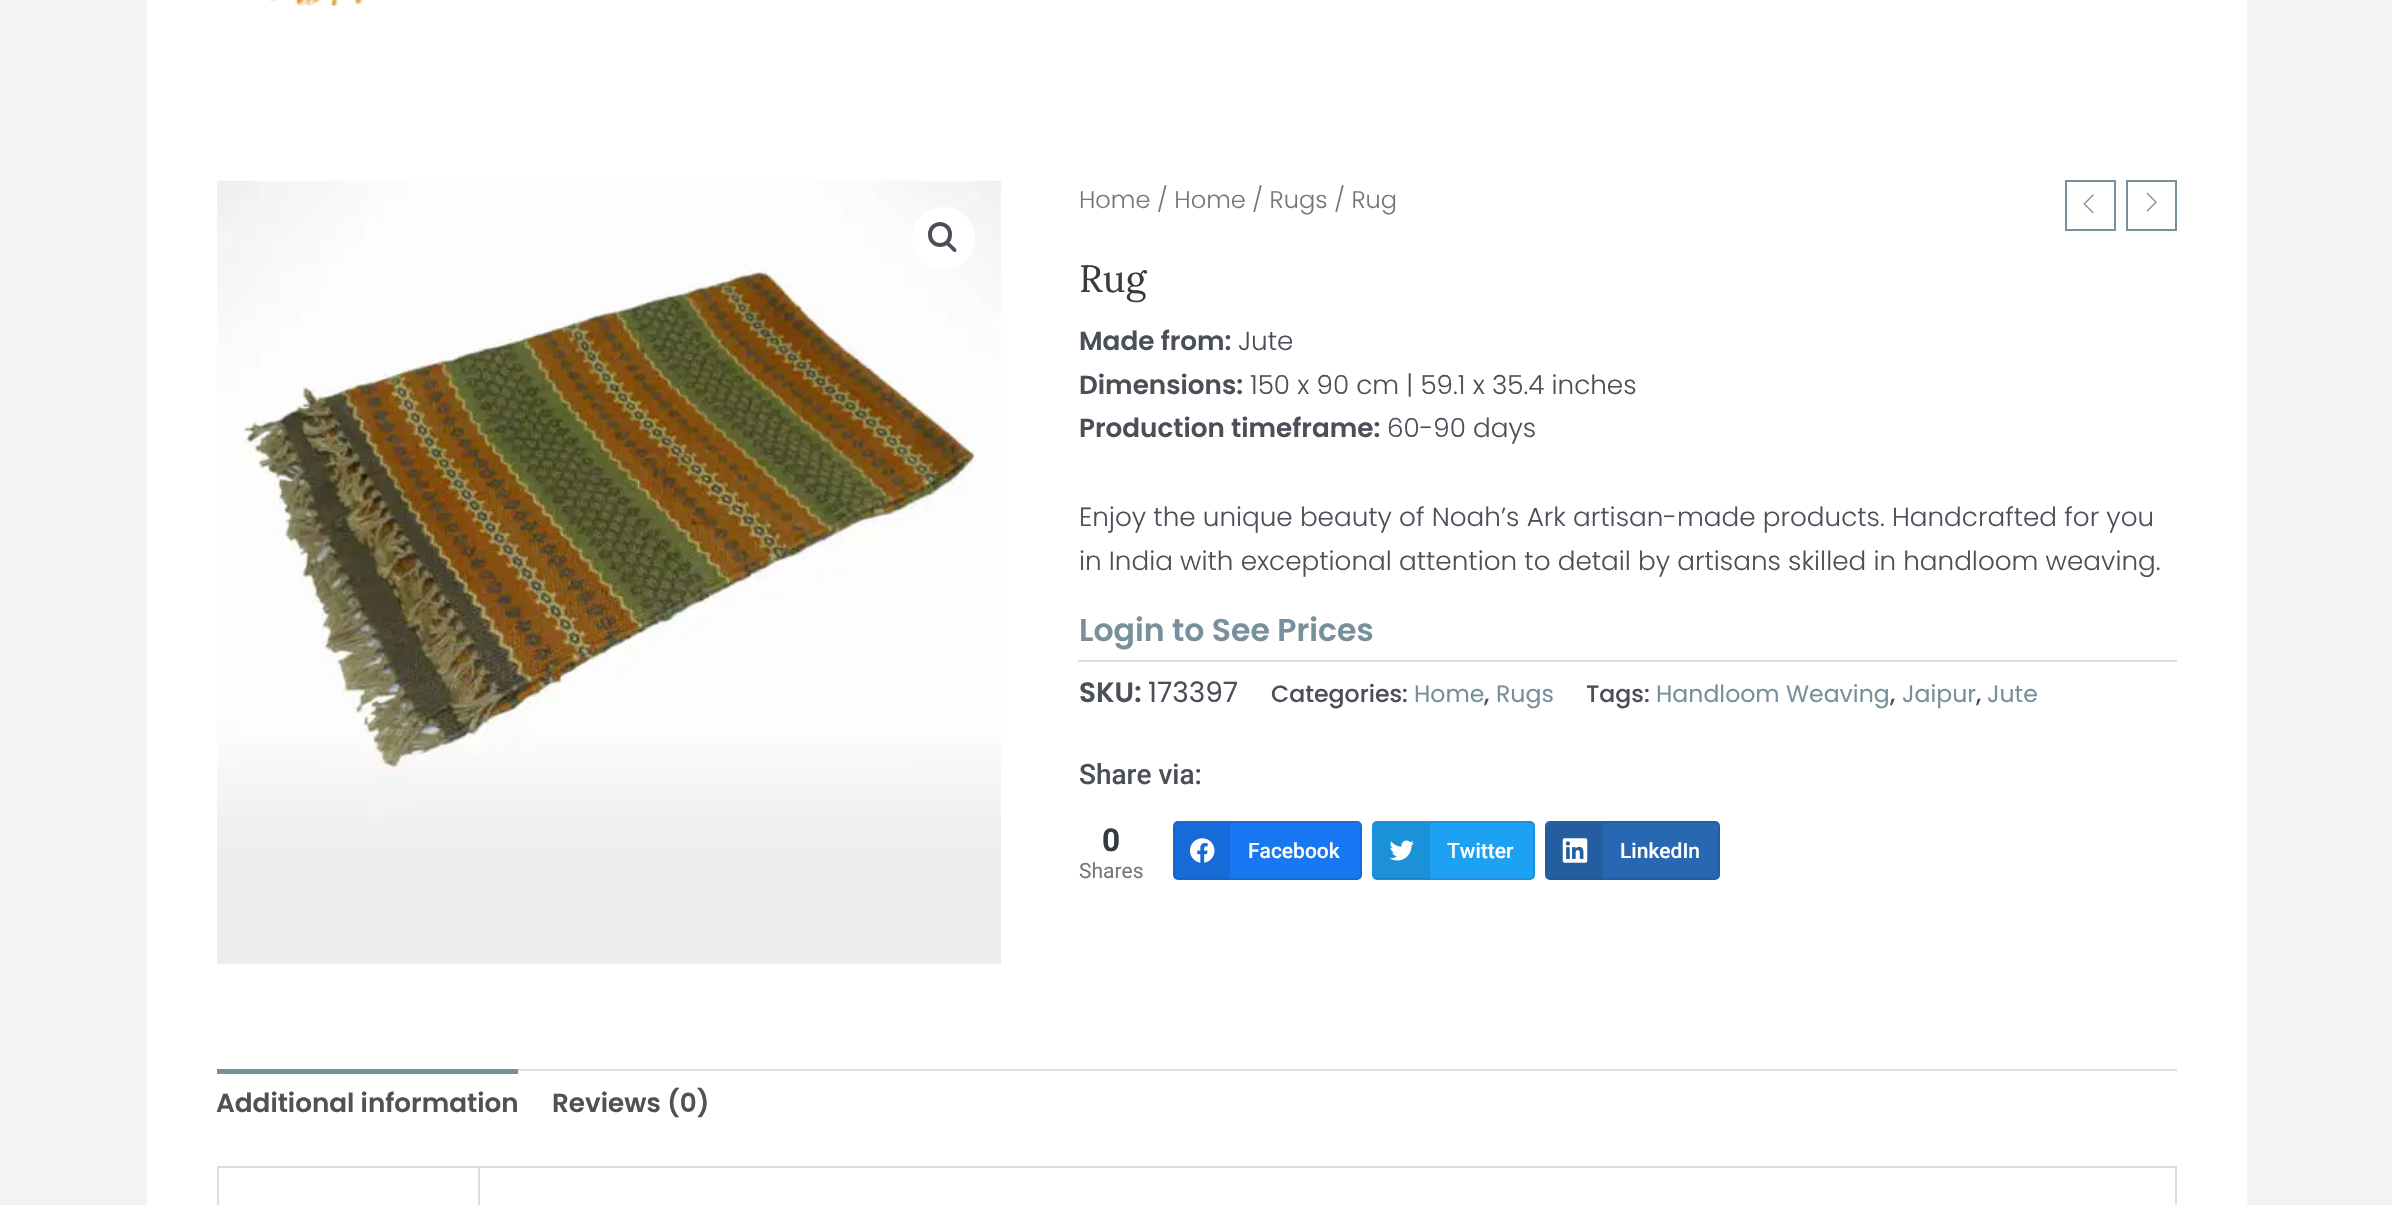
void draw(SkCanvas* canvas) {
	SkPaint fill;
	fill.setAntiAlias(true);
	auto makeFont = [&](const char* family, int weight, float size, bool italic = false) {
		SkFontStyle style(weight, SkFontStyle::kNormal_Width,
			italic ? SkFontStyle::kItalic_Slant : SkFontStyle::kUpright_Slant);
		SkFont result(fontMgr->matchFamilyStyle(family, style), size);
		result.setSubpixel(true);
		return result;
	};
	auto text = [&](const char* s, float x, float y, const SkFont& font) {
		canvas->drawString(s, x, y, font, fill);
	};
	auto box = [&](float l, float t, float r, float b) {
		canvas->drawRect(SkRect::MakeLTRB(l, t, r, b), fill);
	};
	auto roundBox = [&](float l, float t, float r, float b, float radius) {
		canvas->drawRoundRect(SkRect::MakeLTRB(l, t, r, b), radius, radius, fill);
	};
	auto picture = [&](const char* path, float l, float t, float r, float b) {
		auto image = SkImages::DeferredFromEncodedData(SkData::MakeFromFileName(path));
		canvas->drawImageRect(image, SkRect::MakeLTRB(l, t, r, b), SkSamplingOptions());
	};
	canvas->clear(0xFFF3F3F3);
	fill.setColor(0xFFFFFFFF);
	box(147, 0, 2247, 1205);
	picture("image0.png", 268, 0, 363, 6);
	picture("image1.png", 217, 180, 1001, 965);
	canvas->drawCircle(943.5f, 238.5f, 31.5f, fill);
	fill.setStyle(SkPaint::kStroke_Style);
	fill.setStrokeWidth(4);
	fill.setColor(0xFF4B4F58);
	canvas->drawRoundRect(SkRect::MakeLTRB(930, 224, 950, 245), 10, 10, fill);
	fill.setStyle(SkPaint::kFill_Style);
	canvas->drawPath(SkPathBuilder().moveTo(946, 242).cubicTo(948, 240, 951.5f, 244.5f, 952.5f, 245.5f).cubicTo(953.5f, 246.5f, 958, 249.5f, 956, 251.5f).cubicTo(954, 253.5f, 951, 249, 950, 248).cubicTo(949, 247, 944, 244, 946, 242).close().detach(), fill);
	fill.setStyle(SkPaint::kStroke_Style);
	fill.setStrokeWidth(2);
	fill.setColor(0xFF78909C);
	canvas->drawRect(SkRect::MakeLTRB(2066, 181, 2115, 230), fill);
	picture("image2.png", 2083, 194, 2094, 214);
	canvas->drawRect(SkRect::MakeLTRB(2127, 181, 2176, 230), fill);
	picture("image3.png", 2146, 192, 2157, 212);
	fill.setStyle(SkPaint::kFill_Style);
	fill.setColor(0xFFDDDDDD);
	box(1078, 660, 2177, 662);
	fill.setColor(0xFF1877F2);
	roundBox(1173, 821, 1362, 880, 5);
	fill.setStyle(SkPaint::kStroke_Style);
	fill.setColor(0x1A000000);
	canvas->drawRoundRect(SkRect::MakeLTRB(1174, 822, 1361, 879), 4, 4, fill);
	fill.setStyle(SkPaint::kFill_Style);
	canvas->drawPath(SkPathBuilder().moveTo(1178, 823).lineTo(1230, 823).lineTo(1230, 879).lineTo(1178, 879).cubicTo(1176, 879, 1174, 877, 1174, 875).lineTo(1174, 827).cubicTo(1174, 825, 1176, 823, 1178, 823).close().detach(), fill);
	picture("image4.png", 1190, 838, 1215, 863);
	fill.setColor(0xFF1DA1F2);
	roundBox(1372, 821, 1535, 880, 5);
	fill.setStyle(SkPaint::kStroke_Style);
	fill.setColor(0x1A000000);
	canvas->drawRoundRect(SkRect::MakeLTRB(1373, 822, 1534, 879), 4, 4, fill);
	fill.setStyle(SkPaint::kFill_Style);
	canvas->drawPath(SkPathBuilder().moveTo(1378, 823).lineTo(1430, 823).lineTo(1430, 879).lineTo(1378, 879).cubicTo(1376, 879, 1374, 877, 1374, 875).lineTo(1374, 827).cubicTo(1374, 825, 1376, 823, 1378, 823).close().detach(), fill);
	picture("image5.png", 1389, 840, 1414, 861);
	fill.setColor(0xFF2867B2);
	roundBox(1545, 821, 1720, 880, 5);
	fill.setStyle(SkPaint::kStroke_Style);
	fill.setColor(0x1A000000);
	canvas->drawRoundRect(SkRect::MakeLTRB(1546, 822, 1719, 879), 4, 4, fill);
	fill.setStyle(SkPaint::kFill_Style);
	canvas->drawPath(SkPathBuilder().moveTo(1551, 823).lineTo(1603, 823).lineTo(1603, 879).lineTo(1551, 879).cubicTo(1549, 879, 1547, 877, 1547, 875).lineTo(1547, 827).cubicTo(1547, 825, 1549, 823, 1551, 823).close().detach(), fill);
	picture("image6.png", 1562, 838, 1588, 863);
	fill.setColor(0xFFDDDDDD);
	box(518, 1069, 2177, 1071);
	fill.setColor(0xFF78909C);
	box(217, 1069, 518, 1074);
	fill.setColor(0xFFDDDDDD);
	box(217, 1166, 2177, 1168);
	box(478, 1167, 480, 1205);
	box(217, 1167, 219, 1205);
	box(2175, 1167, 2177, 1205);
	auto font1 = makeFont("Poppins", 300, 24.1f);
	fill.setColor(0xFF777777);
	text("Home / Home / Rugs / Rug", 1079, 208, font1);
	auto font2 = makeFont("Lora", 400, 38);
	fill.setColor(0xFF3A3A3A);
	text("Rug", 1079, 292, font2);
	auto font3 = makeFont("Poppins", 600, 26.25f);
	fill.setColor(0xFF4B4F58);
	text("Made from:", 1079, 350, font3);
	auto font4 = makeFont("Poppins", 300, 26.25f);
	text("Jute", 1238, 350, font4);
	text("Dimensions:", 1079, 394, font3);
	text("150 x 90 cm | 59.1 x 35.4 inches", 1250, 394, font4);
	text("Production timeframe:", 1079, 437, font3);
	text("60-90 days", 1387, 437, font4);
	text("Enjoy the unique beauty of Noah’s Ark artisan-made products. Handcrafted for you", 1079, 526, font4);
	text("in India with exceptional attention to detail by artisans skilled in handloom weaving.", 1079, 570, font4);
	auto font5 = makeFont("Poppins", 600, 31.5f);
	fill.setColor(0xFF78909C);
	text("Login to See Prices", 1079, 641, font5);
	auto font6 = makeFont("Poppins", 600, 28);
	fill.setColor(0xFF4B4F58);
	text("SKU:", 1079, 702, font6);
	auto font7 = makeFont("Poppins", 400, 28);
	text("173397", 1148, 702, font7);
	auto font8 = makeFont("Poppins", 500, 23.6f);
	text("Categories:", 1271, 702, font8);
	auto font9 = makeFont("Poppins", 400, 23.6f);
	fill.setColor(0xFF78909C);
	text("Home", 1414, 702, font9);
	fill.setColor(0xFF4B4F58);
	text(",", 1484, 702, font8);
	fill.setColor(0xFF78909C);
	text("Rugs", 1496, 702, font9);
	fill.setColor(0xFF4B4F58);
	text("Tags:", 1586, 702, font8);
	fill.setColor(0xFF78909C);
	text("Handloom Weaving", 1656, 702, font9);
	fill.setColor(0xFF4B4F58);
	text(",", 1890, 702, font8);
	fill.setColor(0xFF78909C);
	text("Jaipur", 1902, 702, font9);
	fill.setColor(0xFF4B4F58);
	text(",", 1976, 702, font8);
	fill.setColor(0xFF78909C);
	text("Jute", 1987, 702, font9);
	auto font10 = makeFont("Roboto", 500, 28);
	fill.setColor(0xFF4B4F58);
	text("Share via:", 1079, 784, font10);
	auto font11 = makeFont("Roboto", 700, 31.5f);
	fill.setColor(0xFF323B43);
	text("0", 1102, 851, font11);
	auto font12 = makeFont("Roboto", 400, 21);
	fill.setColor(0xFF777777);
	text("Shares", 1079, 878, font12);
	auto font13 = makeFont("Roboto", 500, 21);
	fill.setColor(0xFFFFFFFF);
	text("Facebook", 1248, 858, font13);
	text("Twitter", 1447, 858, font13);
	text("LinkedIn", 1620, 858, font13);
	fill.setColor(0xFF515151);
	text("Additional information", 216, 1112, font3);
	text("Reviews (0)", 552, 1112, font3);
}
